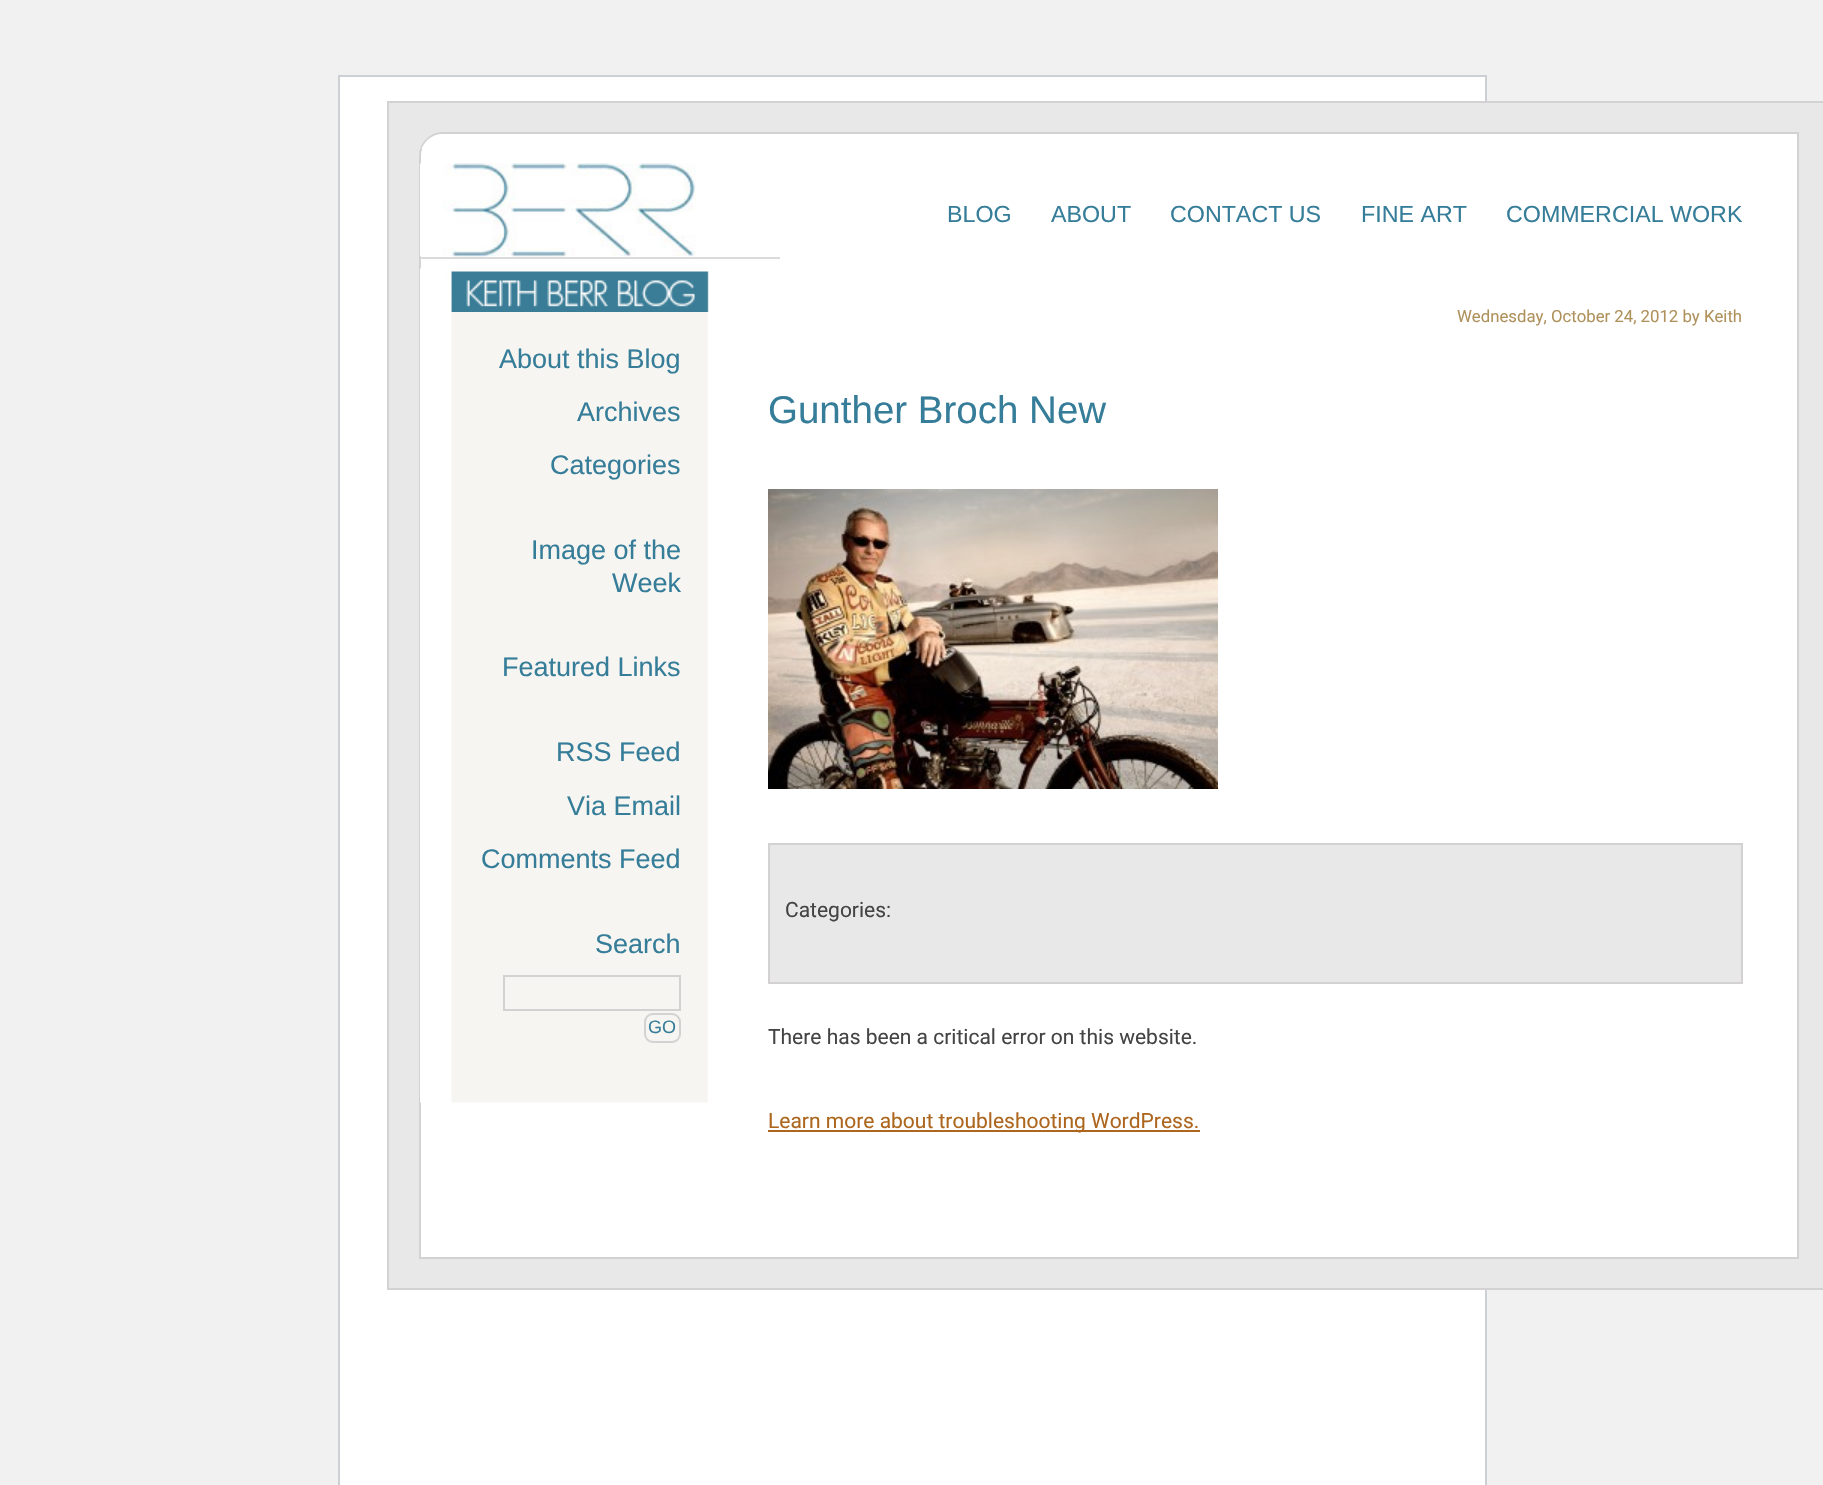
void draw(SkCanvas* canvas) {
	SkPaint fill;
	fill.setAntiAlias(true);
	auto makeFont = [&](const char* family, int weight, float size, bool italic = false) {
		SkFontStyle style(weight, SkFontStyle::kNormal_Width,
			italic ? SkFontStyle::kItalic_Slant : SkFontStyle::kUpright_Slant);
		SkFont result(fontMgr->matchFamilyStyle(family, style), size);
		result.setSubpixel(true);
		return result;
	};
	auto text = [&](const char* s, float x, float y, const SkFont& font) {
		canvas->drawString(s, x, y, font, fill);
	};
	auto box = [&](float l, float t, float r, float b) {
		canvas->drawRect(SkRect::MakeLTRB(l, t, r, b), fill);
	};
	auto picture = [&](const char* path, float l, float t, float r, float b) {
		auto image = SkImages::DeferredFromEncodedData(SkData::MakeFromFileName(path));
		canvas->drawImageRect(image, SkRect::MakeLTRB(l, t, r, b), SkSamplingOptions());
	};
	canvas->clear(0xFFF1F1F1);
	fill.setColor(0xFFFFFFFF);
	canvas->drawRect(SkRect::MakeLTRB(339, 76, 1486, 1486), fill);
	fill.setStyle(SkPaint::kStroke_Style);
	fill.setStrokeWidth(2);
	fill.setColor(0xFFCCD0D4);
	canvas->drawRect(SkRect::MakeLTRB(339, 76, 1486, 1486), fill);
	fill.setStyle(SkPaint::kFill_Style);
	fill.setColor(0xFFE8E8E8);
	canvas->drawRect(SkRect::MakeLTRB(388, 102, 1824, 1289), fill);
	fill.setStyle(SkPaint::kStroke_Style);
	fill.setColor(0xFFD3D1D1);
	canvas->drawRect(SkRect::MakeLTRB(388, 102, 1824, 1289), fill);
	fill.setStyle(SkPaint::kFill_Style);
	fill.setColor(0xFFFFFFFF);
	canvas->drawPath(SkPathBuilder().moveTo(443, 133).lineTo(1798, 133).lineTo(1798, 1258).lineTo(420, 1258).lineTo(420, 156).cubicTo(420, 143.5f, 430.5f, 133, 443, 133).close().detach(), fill);
	fill.setStyle(SkPaint::kStroke_Style);
	fill.setColor(0xFFD3D1D1);
	canvas->drawPath(SkPathBuilder().moveTo(443, 133).lineTo(1798, 133).lineTo(1798, 1258).lineTo(420, 1258).lineTo(420, 156).cubicTo(420, 143.5f, 430.5f, 133, 443, 133).close().detach(), fill);
	canvas->save();
	canvas->clipPath(SkPathBuilder().moveTo(443, 134).lineTo(1797, 134).lineTo(1797, 1257).lineTo(420, 1257).lineTo(420, 157).cubicTo(420, 144.5f, 430.5f, 134, 443, 134).close().detach(), true);
	fill.setStyle(SkPaint::kFill_Style);
	fill.setColor(0xFFFFFFFF);
	box(421, 134, 1797, 149);
	canvas->restore();
	fill.setColor(0xFFDADADA);
	box(420, 257, 780, 259);
	picture("image0.png", 420, 163, 696, 257);
	picture("image1.png", 420, 268, 708, 1103);
	picture("image2.png", 420, 268, 709, 312);
	fill.setStyle(SkPaint::kStroke_Style);
	fill.setColor(0xFFD3D1D1);
	canvas->drawRect(SkRect::MakeLTRB(504, 976, 680, 1010), fill);
	canvas->drawRoundRect(SkRect::MakeLTRB(645, 1014, 680, 1042), 8, 8, fill);
	picture("image3.png", 768, 489, 1218, 789);
	fill.setStyle(SkPaint::kFill_Style);
	fill.setColor(0xFFE8E8E8);
	canvas->drawRect(SkRect::MakeLTRB(769, 844, 1742, 983), fill);
	fill.setStyle(SkPaint::kStroke_Style);
	fill.setColor(0xFFD3D1D1);
	canvas->drawRect(SkRect::MakeLTRB(769, 844, 1742, 983), fill);
	fill.setStyle(SkPaint::kFill_Style);
	fill.setColor(0xFFAD661D);
	box(768, 1130, 1200, 1132);
	auto font1 = makeFont("Liberation Sans", 400, 23.25f);
	fill.setColor(0xFF367D99);
	text("BLOG", 947, 222, font1);
	text("ABOUT", 1051, 222, font1);
	text("CONTACT US", 1170, 222, font1);
	text("FINE ART", 1361, 222, font1);
	text("COMMERCIAL WORK", 1506, 222, font1);
	auto font2 = makeFont("Liberation Sans", 400, 27);
	text("About this Blog", 499, 368, font2);
	text("Archives", 577, 421, font2);
	text("Categories", 550, 474, font2);
	text("Image of the", 531, 559, font2);
	text("Week", 612, 592, font2);
	text("Featured Links", 502, 676, font2);
	text("RSS Feed", 556, 761, font2);
	text("Via Email", 567, 815, font2);
	text("Comments Feed", 481, 868, font2);
	text("Search", 595, 953, font2);
	auto font3 = makeFont("Liberation Sans", 400, 18);
	text("GO", 648, 1033, font3);
	auto font4 = makeFont("Roboto", 400, 16.75f);
	fill.setColor(0xFFAF915C);
	text("Wednesday, October 24, 2012 by Keith", 1457, 322, font4);
	auto font5 = makeFont("Liberation Sans", 400, 38.5f);
	fill.setColor(0xFF367D99);
	text("Gunther Broch New", 768, 423, font5);
	auto font6 = makeFont("Roboto", 400, 21);
	fill.setColor(0xFF444444);
	text("Categories:", 785, 917, font6);
	text("There has been a critical error on this website.", 768, 1044, font6);
	fill.setColor(0xFFAD661D);
	text("Learn more about troubleshooting WordPress.", 768, 1128, font6);
}
